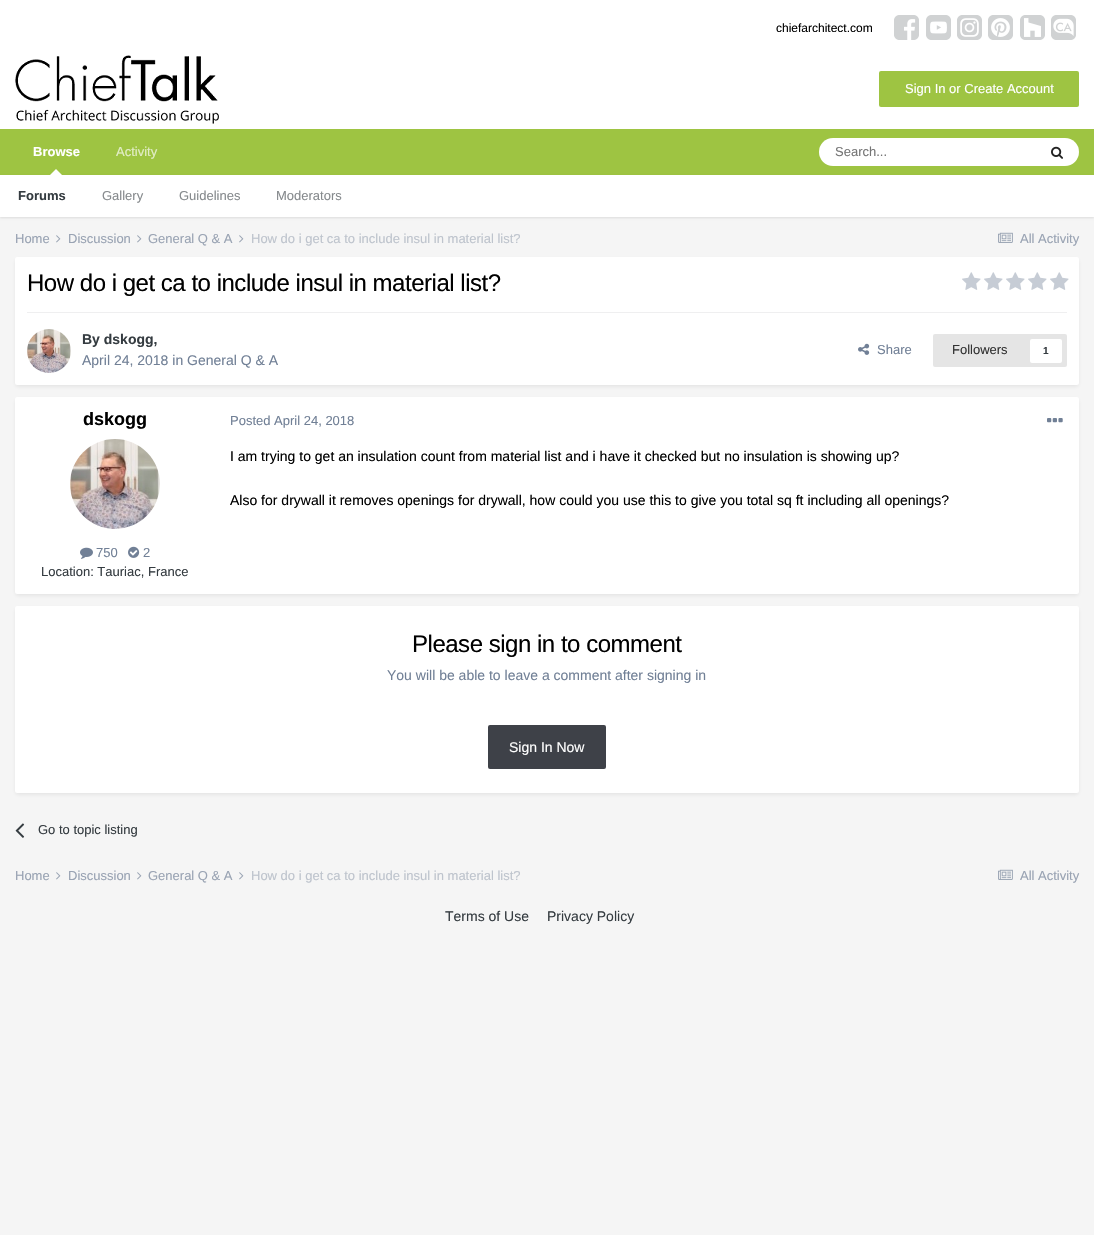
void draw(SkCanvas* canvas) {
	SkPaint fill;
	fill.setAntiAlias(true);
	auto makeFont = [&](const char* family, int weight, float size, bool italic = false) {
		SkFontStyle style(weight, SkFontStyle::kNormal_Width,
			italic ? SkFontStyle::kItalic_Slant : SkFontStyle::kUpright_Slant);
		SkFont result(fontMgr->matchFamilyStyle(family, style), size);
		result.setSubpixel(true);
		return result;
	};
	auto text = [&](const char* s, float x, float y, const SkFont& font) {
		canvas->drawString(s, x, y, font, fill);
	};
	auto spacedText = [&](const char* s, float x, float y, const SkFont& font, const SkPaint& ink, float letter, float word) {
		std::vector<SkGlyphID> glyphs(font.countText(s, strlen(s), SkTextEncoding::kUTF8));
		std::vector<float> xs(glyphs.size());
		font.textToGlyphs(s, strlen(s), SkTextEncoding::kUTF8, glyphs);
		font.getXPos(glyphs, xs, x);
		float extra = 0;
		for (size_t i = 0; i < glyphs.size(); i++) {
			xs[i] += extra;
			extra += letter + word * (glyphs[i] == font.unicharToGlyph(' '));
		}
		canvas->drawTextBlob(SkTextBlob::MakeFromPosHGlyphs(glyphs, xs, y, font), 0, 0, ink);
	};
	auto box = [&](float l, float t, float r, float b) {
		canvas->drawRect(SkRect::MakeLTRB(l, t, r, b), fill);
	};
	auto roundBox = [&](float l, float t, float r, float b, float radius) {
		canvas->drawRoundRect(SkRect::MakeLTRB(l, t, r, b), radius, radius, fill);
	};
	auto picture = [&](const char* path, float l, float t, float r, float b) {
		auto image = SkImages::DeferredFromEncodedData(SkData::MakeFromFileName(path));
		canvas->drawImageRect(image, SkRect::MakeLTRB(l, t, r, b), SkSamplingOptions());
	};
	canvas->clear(0xFFF5F5F5);
	fill.setColor(0xFFFFFFFF);
	box(0, 0, 1094, 129);
	picture("image0.png", 894, 15, 919, 40);
	picture("image1.png", 926, 15, 951, 40);
	picture("image2.png", 957, 15, 982, 40);
	picture("image3.png", 988, 15, 1013, 40);
	picture("image4.png", 1020, 15, 1045, 40);
	picture("image5.png", 1051, 15, 1076, 40);
	picture("image6.png", 15, 55, 219, 124);
	fill.setColor(0xFF9EC442);
	roundBox(879, 71, 1079, 107, 2);
	box(0, 129, 1094, 175);
	fill.setColor(0x1A000000);
	fill.setMaskFilter(SkMaskFilter::MakeBlur(kNormal_SkBlurStyle, 1));
	canvas->drawRect(SkRect::MakeLTRB(0, 176, 1094, 218), fill);
	fill.setMaskFilter(nullptr);
	fill.setColor(0xFFFFFFFF);
	canvas->drawPath(SkPathBuilder().moveTo(62, 175).lineTo(50, 175).lineTo(56, 169).close().detach(), fill);
	roundBox(819, 138, 1079, 166, 14);
	picture("image7.png", 1051, 146, 1063, 159);
	box(0, 175, 1094, 217);
	picture("image8.png", 56, 235, 61, 243);
	picture("image8.png", 137, 235, 142, 243);
	picture("image8.png", 239, 235, 244, 243);
	picture("image9.png", 998, 232, 1013, 243);
	fill.setColor(0x1A222222);
	fill.setMaskFilter(SkMaskFilter::MakeBlur(kNormal_SkBlurStyle, 2));
	canvas->drawRoundRect(SkRect::MakeLTRB(16, 260, 1078, 386), 1, 1, fill);
	fill.setMaskFilter(nullptr);
	fill.setColor(0xFFFFFFFF);
	roundBox(15, 257, 1079, 385, 2);
	picture("image10.png", 962, 272, 981, 290);
	picture("image10.png", 984, 272, 1003, 290);
	picture("image10.png", 1006, 272, 1025, 290);
	picture("image10.png", 1028, 272, 1047, 290);
	picture("image10.png", 1050, 272, 1069, 290);
	fill.setColor(0xFFEFEFF0);
	box(27, 312, 1067, 313);
	picture("image11.png", 27, 329, 71, 373);
	picture("image12.png", 858, 343, 870, 355);
	fill.setColor(0xFFE5E5E5);
	roundBox(933, 334, 1067, 367, 2);
	fill.setColor(0xFFFFFFFF);
	roundBox(1030, 339, 1062, 363, 2);
	fill.setColor(0x1A222222);
	fill.setMaskFilter(SkMaskFilter::MakeBlur(kNormal_SkBlurStyle, 2));
	canvas->drawRoundRect(SkRect::MakeLTRB(16, 400, 1078, 595), 1, 1, fill);
	fill.setMaskFilter(nullptr);
	fill.setColor(0xFFFFFFFF);
	roundBox(15, 397, 1079, 594, 2);
	picture("image13.png", 70, 439, 160, 529);
	picture("image14.png", 80, 547, 93, 559);
	picture("image15.png", 128, 546, 140, 558);
	picture("image16.png", 1047, 418, 1063, 423);
	fill.setColor(0x1A222222);
	fill.setMaskFilter(SkMaskFilter::MakeBlur(kNormal_SkBlurStyle, 2));
	canvas->drawRoundRect(SkRect::MakeLTRB(16, 609, 1078, 794), 1, 1, fill);
	fill.setMaskFilter(nullptr);
	fill.setColor(0xFFFFFFFF);
	roundBox(15, 606, 1079, 793, 2);
	fill.setColor(0xFF3E4148);
	roundBox(488, 725, 606, 769, 2);
	picture("image17.png", 15, 823, 25, 838);
	picture("image8.png", 56, 872, 61, 880);
	picture("image8.png", 137, 872, 142, 880);
	picture("image8.png", 239, 872, 244, 880);
	picture("image9.png", 998, 869, 1013, 880);
	auto font1 = makeFont("Liberation Sans", 400, 12);
	fill.setColor(0xFF000000);
	text("chiefarchitect.com", 776, 32, font1);
	auto font2 = makeFont("Liberation Sans", 400, 13);
	fill.setColor(0xFFFFFFFF);
	text("Sign In or Create Account", 905, 93, font2);
	fill.setColor(0xFFE2EDC6);
	text("Activity", 116, 156, font2);
	auto font3 = makeFont("Liberation Sans", 700, 13);
	fill.setColor(0xFFFFFFFF);
	text("Browse", 33, 156, font3);
	fill.setColor(0xFF353C41);
	text("Forums", 18, 200, font3);
	fill.setColor(0xFF868A8D);
	text("Gallery", 102, 200, font2);
	text("Guidelines", 179, 200, font2);
	text("Moderators", 276, 200, font2);
	fill.setColor(0xFF757575);
	text("Search...", 835, 156, font2);
	fill.setColor(0xFF99A3B3);
	text("Home", 15, 243, font2);
	text("Discussion", 68, 243, font2);
	text("General Q & A", 148, 243, font2);
	fill.setColor(0xFFBEC4CD);
	text("How do i get ca to include insul in material list?", 251, 243, font2);
	fill.setColor(0xFF99A3B3);
	text("All Activity", 1020, 243, font2);
	auto font4 = makeFont("Liberation Sans", 400, 24);
	fill.setColor(0xFF000000);
	spacedText("How do i get ca to include insul in material list?", 27, 291, font4, fill, -0.48f, 0);
	auto font5 = makeFont("Liberation Sans", 700, 14);
	fill.setColor(0xFF353C41);
	text("By dskogg,", 82, 344, font5);
	auto font6 = makeFont("Liberation Sans", 400, 14);
	fill.setColor(0xFF718096);
	text("April 24, 2018 in General Q & A", 82, 365, font6);
	text("Share", 877, 354, font2);
	fill.setColor(0xFF333333);
	text("Followers", 952, 354, font2);
	auto font7 = makeFont("Liberation Sans", 700, 10);
	fill.setColor(0xFF353C41);
	text("1", 1043, 354, font7);
	auto font8 = makeFont("Liberation Sans", 700, 18);
	fill.setColor(0xFF000000);
	text("dskogg", 83, 425, font8);
	fill.setColor(0xFF718096);
	text("750", 96, 557, font2);
	text("2", 143, 557, font2);
	fill.setColor(0xFF353C41);
	text("Location: Tauriac, France", 41, 576, font2);
	fill.setColor(0xFF718096);
	text("Posted April 24, 2018", 230, 425, font2);
	fill.setColor(0xFF000000);
	text("I am trying to get an insulation count from material list and i have it checked but no insulation is showing up?", 230, 461, font6);
	text("Also for drywall it removes openings for drywall, how could you use this to give you total sq ft including all openings?", 230, 505, font6);
	spacedText("Please sign in to comment", 412, 652, font4, fill, -0.48f, 0);
	fill.setColor(0xFF718096);
	text("You will be able to leave a comment after signing in", 387, 680, font6);
	fill.setColor(0xFFFFFFFF);
	text("Sign In Now", 509, 752, font6);
	fill.setColor(0xFF353C41);
	text("Go to topic listing", 38, 834, font2);
	fill.setColor(0xFF99A3B3);
	text("Home", 15, 880, font2);
	text("Discussion", 68, 880, font2);
	text("General Q & A", 148, 880, font2);
	fill.setColor(0xFFBEC4CD);
	text("How do i get ca to include insul in material list?", 251, 880, font2);
	fill.setColor(0xFF99A3B3);
	text("All Activity", 1020, 880, font2);
	fill.setColor(0xFF353C41);
	text("Terms of Use", 445, 921, font6);
	text("Privacy Policy", 547, 921, font6);
}
